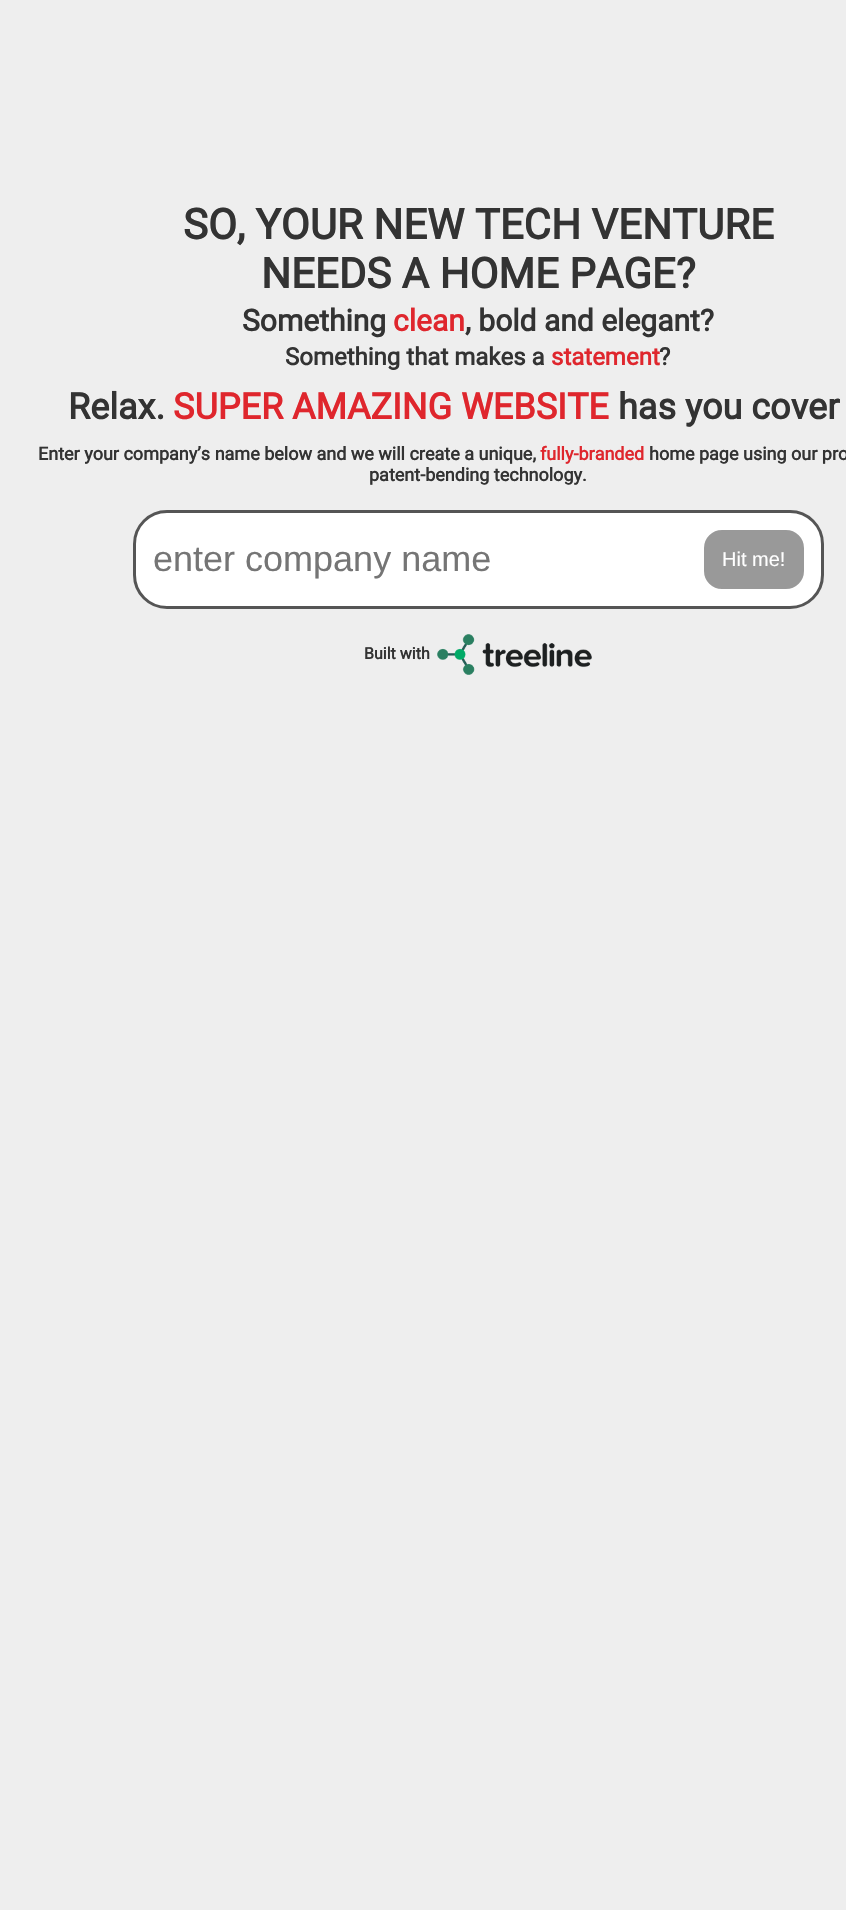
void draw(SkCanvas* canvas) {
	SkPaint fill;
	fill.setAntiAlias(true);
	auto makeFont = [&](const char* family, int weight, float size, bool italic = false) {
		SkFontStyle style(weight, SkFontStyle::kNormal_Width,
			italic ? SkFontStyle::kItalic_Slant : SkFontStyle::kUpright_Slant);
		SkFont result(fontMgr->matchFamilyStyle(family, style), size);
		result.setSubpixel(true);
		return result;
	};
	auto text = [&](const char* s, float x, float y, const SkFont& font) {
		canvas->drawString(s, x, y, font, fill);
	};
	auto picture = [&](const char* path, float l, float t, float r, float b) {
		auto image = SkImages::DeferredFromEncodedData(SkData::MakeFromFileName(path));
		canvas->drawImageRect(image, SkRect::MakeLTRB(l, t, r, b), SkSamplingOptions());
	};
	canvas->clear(0xFFEEEEEE);
	fill.setColor(0xFFFFFFFF);
	canvas->drawRoundRect(SkRect::MakeLTRB(134.5f, 511.5f, 822.5f, 607.5f), 32.5f, 32.5f, fill);
	fill.setStyle(SkPaint::kStroke_Style);
	fill.setStrokeWidth(3);
	fill.setColor(0xFF555555);
	canvas->drawRoundRect(SkRect::MakeLTRB(134.5f, 511.5f, 822.5f, 607.5f), 32.5f, 32.5f, fill);
	fill.setStyle(SkPaint::kFill_Style);
	fill.setColor(0xFF999999);
	canvas->drawRoundRect(SkRect::MakeLTRB(703, 529, 805, 590), 19, 19, fill);
	fill.setStyle(SkPaint::kStroke_Style);
	fill.setStrokeWidth(2);
	fill.setColor(0xFFFFFFFF);
	canvas->drawRoundRect(SkRect::MakeLTRB(703, 529, 805, 590), 19, 19, fill);
	picture("image0.png", 437, 634, 592, 675);
	auto font1 = makeFont("Roboto", 700, 42);
	fill.setStyle(SkPaint::kFill_Style);
	fill.setColor(0xFF333333);
	text("SO, YOUR NEW TECH VENTURE", 183, 239, font1);
	text("NEEDS A HOME PAGE?", 261, 288, font1);
	auto font2 = makeFont("Roboto", 700, 30);
	text("Something", 242, 331, font2);
	fill.setColor(0xFFDF262D);
	text("clean", 393, 331, font2);
	fill.setColor(0xFF333333);
	text(", bold and elegant?", 465, 331, font2);
	auto font3 = makeFont("Roboto", 700, 24);
	text("Something that makes a", 285, 365, font3);
	fill.setColor(0xFFDF262D);
	text("statement", 551, 365, font3);
	fill.setColor(0xFF333333);
	text("?", 659, 365, font3);
	auto font4 = makeFont("Roboto", 700, 36);
	text("Relax.", 68, 419, font4);
	fill.setColor(0xFFDF262D);
	text("SUPER AMAZING WEBSITE", 173, 419, font4);
	fill.setColor(0xFF333333);
	text("has you cover", 618, 419, font4);
	auto font5 = makeFont("Roboto", 700, 18);
	text("Enter your company’s name below and we will create a unique,", 38, 460, font5);
	fill.setColor(0xFFDF262D);
	text("fully-branded", 540, 460, font5);
	fill.setColor(0xFF333333);
	text("home page using our pro", 649, 460, font5);
	text("patent-bending technology.", 369, 481, font5);
	auto font6 = makeFont("Liberation Sans", 400, 36);
	fill.setColor(0xFF757575);
	text("enter company name", 153, 571, font6);
	auto font7 = makeFont("Liberation Sans", 400, 20);
	fill.setColor(0xFFFFFFFF);
	text("Hit me!", 722, 566, font7);
	auto font8 = makeFont("Roboto", 700, 16);
	fill.setColor(0xFF333333);
	text("Built with", 364, 659, font8);
}
